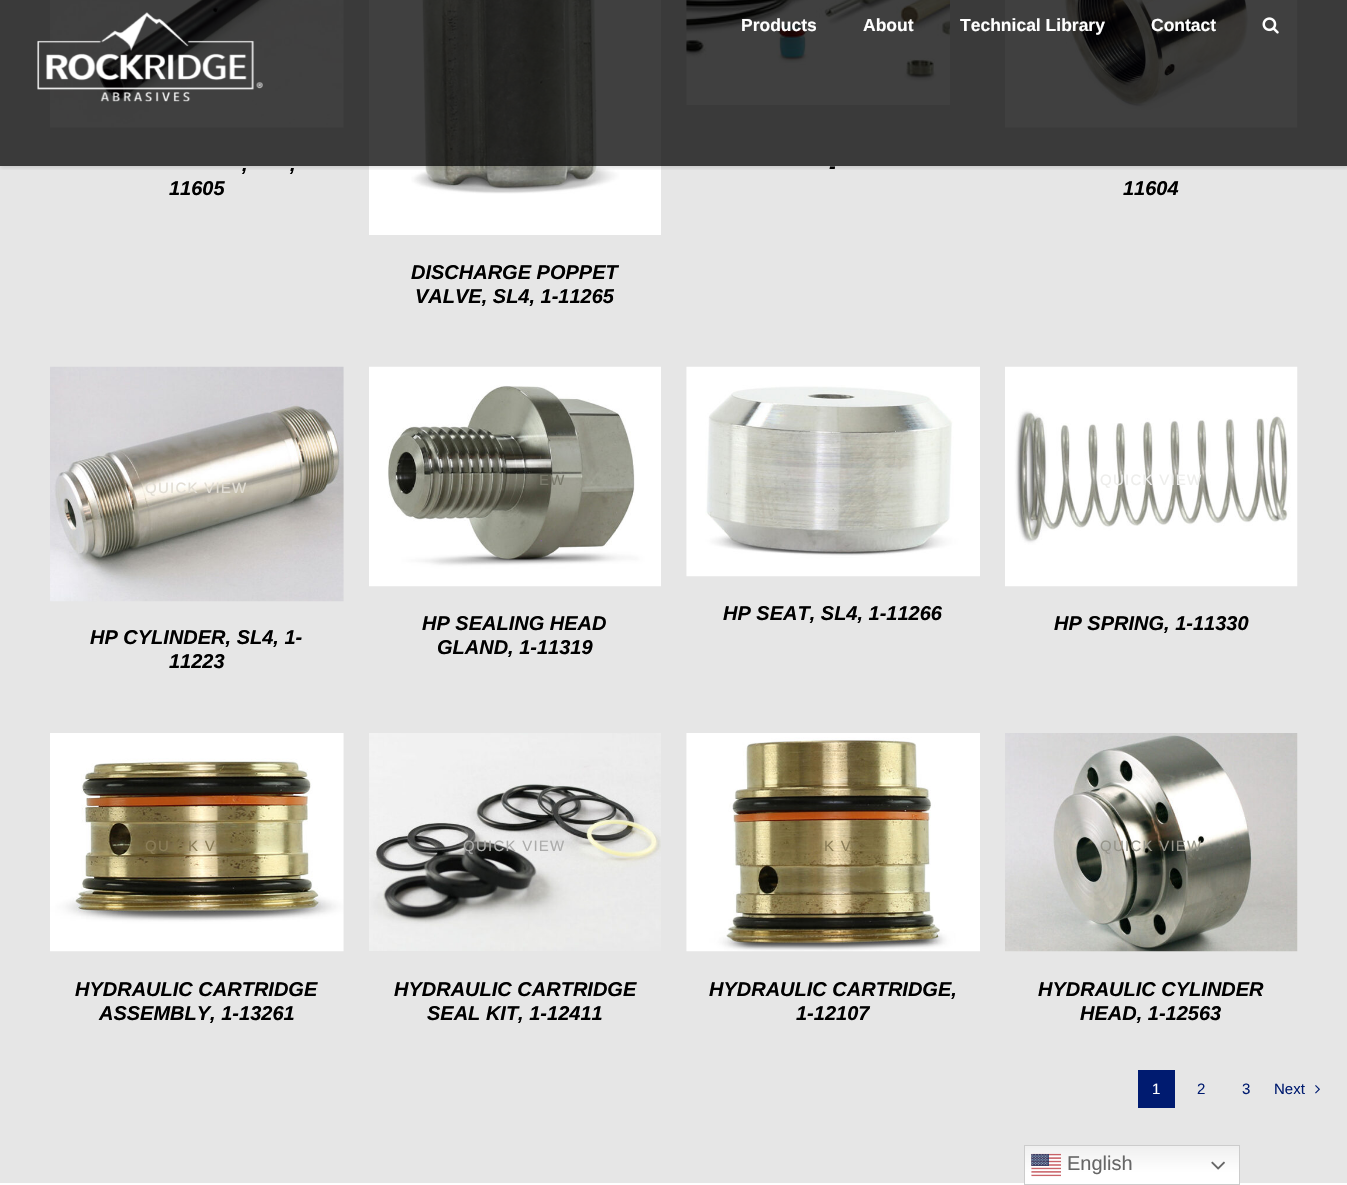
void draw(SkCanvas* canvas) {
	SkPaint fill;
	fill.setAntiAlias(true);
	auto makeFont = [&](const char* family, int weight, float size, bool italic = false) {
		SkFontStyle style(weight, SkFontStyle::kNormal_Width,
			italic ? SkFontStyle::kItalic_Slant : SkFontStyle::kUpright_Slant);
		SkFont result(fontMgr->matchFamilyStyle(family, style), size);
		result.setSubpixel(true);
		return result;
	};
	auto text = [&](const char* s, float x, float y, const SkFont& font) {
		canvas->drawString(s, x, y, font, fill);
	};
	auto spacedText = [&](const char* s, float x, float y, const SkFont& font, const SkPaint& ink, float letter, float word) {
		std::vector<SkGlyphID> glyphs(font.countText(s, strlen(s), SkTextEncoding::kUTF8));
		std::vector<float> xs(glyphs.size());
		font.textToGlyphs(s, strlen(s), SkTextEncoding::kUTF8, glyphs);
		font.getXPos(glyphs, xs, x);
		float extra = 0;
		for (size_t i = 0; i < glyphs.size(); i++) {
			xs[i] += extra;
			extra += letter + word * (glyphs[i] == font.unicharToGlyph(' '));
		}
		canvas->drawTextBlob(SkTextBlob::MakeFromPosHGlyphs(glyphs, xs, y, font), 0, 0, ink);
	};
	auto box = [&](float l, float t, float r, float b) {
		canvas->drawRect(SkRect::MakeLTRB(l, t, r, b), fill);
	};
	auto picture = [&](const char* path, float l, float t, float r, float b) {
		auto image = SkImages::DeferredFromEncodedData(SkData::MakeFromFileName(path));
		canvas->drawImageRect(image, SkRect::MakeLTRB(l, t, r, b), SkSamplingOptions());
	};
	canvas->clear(0xFFFFFFFF);
	fill.setColor(0xFFE6E6E6);
	box(0, 0, 1347, 1183);
	picture("image2.png", 686, 0, 950, 105);
	picture("image3.png", 50, 0, 344, 128);
	picture("image4.png", 1005, 0, 1298, 128);
	picture("image5.png", 369, 0, 661, 235);
	canvas->save();
	canvas->clipRect(SkRect::MakeLTRB(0, 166, 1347, 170));
	fill.setColor(0x1F000000);
	fill.setMaskFilter(SkMaskFilter::MakeBlur(kNormal_SkBlurStyle, 2));
	canvas->drawRect(SkRect::MakeLTRB(0, 1, 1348, 168), fill);
	fill.setMaskFilter(nullptr);
	canvas->restore();
	fill.setColor(0xBF000000);
	box(0, 0, 1347, 166);
	picture("image0.png", 37, 12, 263, 102);
	picture("image1.png", 1262, 17, 1279, 34);
	picture("image6.png", 50, 366, 344, 602);
	picture("image7.png", 369, 366, 661, 587);
	picture("image8.png", 686, 366, 980, 577);
	picture("image9.png", 1005, 366, 1298, 587);
	picture("image10.png", 50, 733, 344, 952);
	picture("image11.png", 369, 733, 661, 951);
	picture("image12.png", 686, 733, 980, 952);
	picture("image13.png", 1005, 733, 1298, 952);
	fill.setColor(0xFF001B70);
	box(1138, 1070, 1175, 1108);
	picture("image14.png", 1315, 1085, 1320, 1094);
	{
		const SkColor colors[] = {0xFFEFEFEF, 0xFFFFFFFF};
		const float stops[] = {0, 0.7f};
		const SkPoint ends[] = {{1132, 1145}, {1132, 1185}};
		fill.setShader(SkGradientShader::MakeLinear(ends, colors, stops, 2, SkTileMode::kClamp));
		fill.setAlpha(255);
	}
	box(1025, 1146, 1239, 1183);
	fill.setStyle(SkPaint::kStroke_Style);
	fill.setStrokeWidth(1);
	fill.setShader(nullptr);
	fill.setColor(0xFFCCCCCC);
	canvas->drawRect(SkRect::MakeLTRB(1024.5f, 1145.5f, 1239.5f, 1184.5f), fill);
	picture("image15.png", 1031, 1153, 1061, 1177);
	picture("image16.png", 1211, 1161, 1225, 1170);
	auto font1 = makeFont("Liberation Sans", 700, 17.5f);
	fill.setStyle(SkPaint::kFill_Style);
	fill.setColor(0xFFFFFFFF);
	text("Products", 741, 31, font1);
	text("About", 863, 31, font1);
	text("Technical Library", 960, 31, font1);
	text("Contact", 1151, 31, font1);
	auto font2 = makeFont("Liberation Sans", 700, 20, true);
	fill.setColor(0xFF000000);
	text("-", 829, 173, font2);
	text(",", 242, 171, font2);
	text(",", 290, 171, font2);
	text("11605", 169, 195, font2);
	text("11604", 1123, 195, font2);
	text("DISCHARGE POPPET", 411, 279, font2);
	text("VALVE, SL4, 1-11265", 415, 303, font2);
	auto font3 = makeFont("Liberation Sans", 400, 15);
	fill.setColor(0xFFE1DDD4);
	spacedText("QUICK VIEW", 145, 493, font3, fill, 1.25f, 0);
	fill.setColor(0xFF000000);
	text("HP CYLINDER, SL4, 1-", 90, 644, font2);
	text("11223", 169, 668, font2);
	fill.setColor(0xFF7A7A6C);
	spacedText("EW", 539, 485, font3, fill, 1.25f, 0);
	fill.setColor(0xFF000000);
	text("HP SEALING HEAD", 422, 630, font2);
	text("GLAND, 1-11319", 437, 654, font2);
	text("HP SEAT, SL4, 1-11266", 723, 620, font2);
	fill.setColor(0xFFEDEDEB);
	spacedText("QUICK VIEW", 1100, 485, font3, fill, 1.25f, 0);
	fill.setColor(0xFF000000);
	text("HP SPRING, 1-11330", 1054, 630, font2);
	fill.setColor(0xFF8B7D57);
	spacedText("QU", 145, 851, font3, fill, 1.25f, 0);
	spacedText("K V", 188, 851, font3, fill, 1.25f, 0);
	fill.setColor(0xFF000000);
	text("HYDRAULIC CARTRIDGE", 75, 996, font2);
	text("ASSEMBLY, 1-13261", 99, 1020, font2);
	fill.setColor(0xFFACACAB);
	spacedText("QUICK VIEW", 463, 851, font3, fill, 1.25f, 0);
	fill.setColor(0xFF000000);
	text("HYDRAULIC CARTRIDGE", 394, 996, font2);
	text("SEAL KIT, 1-12411", 427, 1020, font2);
	fill.setColor(0xFF8B7D57);
	spacedText("K V", 824, 851, font3, fill, 1.25f, 0);
	fill.setColor(0xFF000000);
	text("HYDRAULIC CARTRIDGE,", 709, 996, font2);
	text("1-12107", 796, 1020, font2);
	fill.setColor(0xFF95948A);
	spacedText("QUICK VIEW", 1100, 851, font3, fill, 1.25f, 0);
	fill.setColor(0xFF000000);
	text("HYDRAULIC CYLINDER", 1038, 996, font2);
	text("HEAD, 1-12563", 1080, 1020, font2);
	fill.setColor(0xFFFFFFFF);
	text("1", 1152, 1094, font3);
	fill.setColor(0xFF001B70);
	text("2", 1197, 1094, font3);
	text("3", 1242, 1094, font3);
	text("Next", 1274, 1094, font3);
	auto font4 = makeFont("Liberation Sans", 400, 20);
	fill.setColor(0xFF666666);
	text("English", 1067, 1170, font4);
}
